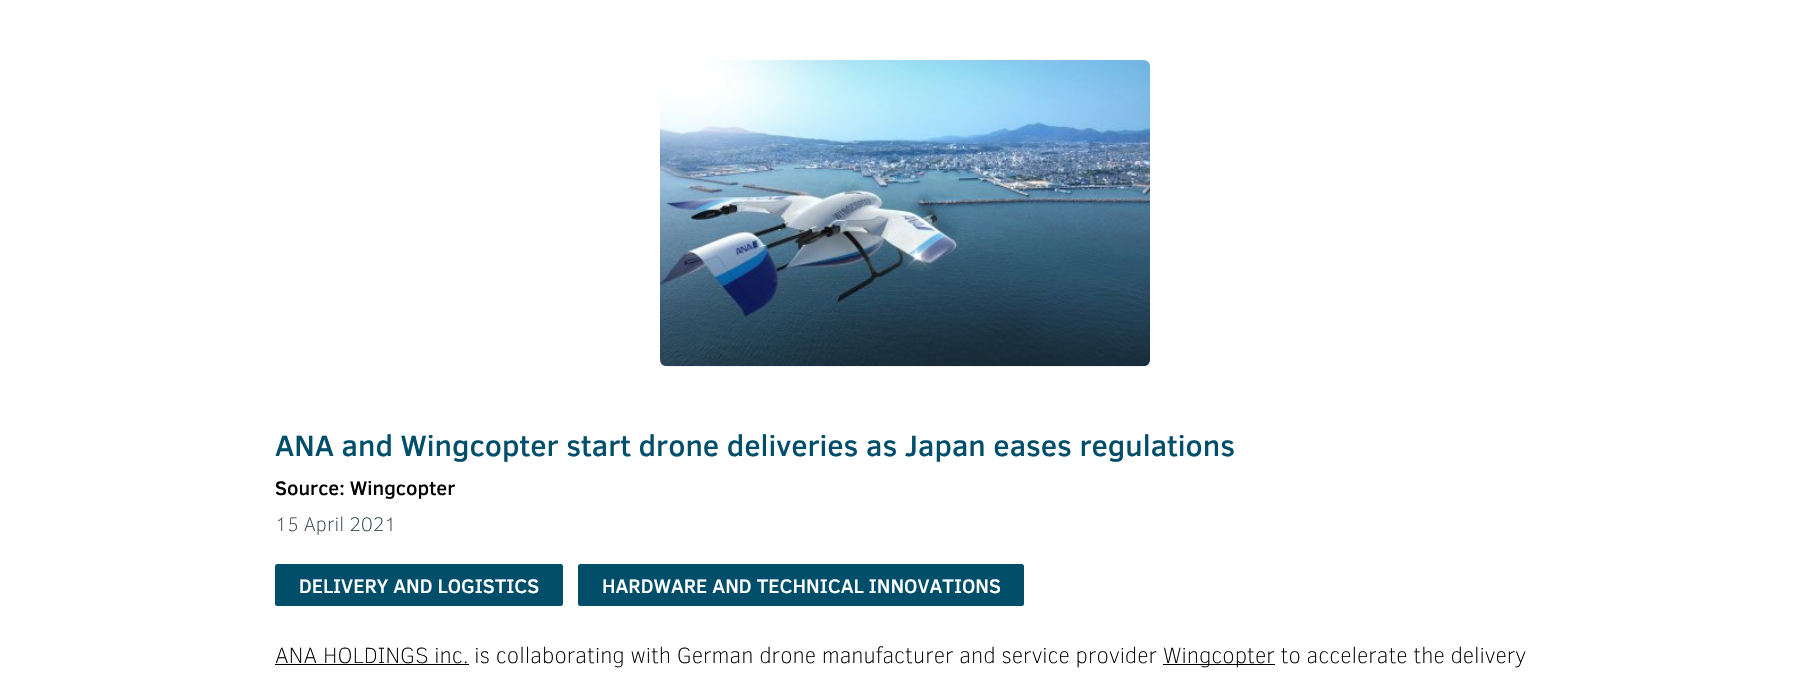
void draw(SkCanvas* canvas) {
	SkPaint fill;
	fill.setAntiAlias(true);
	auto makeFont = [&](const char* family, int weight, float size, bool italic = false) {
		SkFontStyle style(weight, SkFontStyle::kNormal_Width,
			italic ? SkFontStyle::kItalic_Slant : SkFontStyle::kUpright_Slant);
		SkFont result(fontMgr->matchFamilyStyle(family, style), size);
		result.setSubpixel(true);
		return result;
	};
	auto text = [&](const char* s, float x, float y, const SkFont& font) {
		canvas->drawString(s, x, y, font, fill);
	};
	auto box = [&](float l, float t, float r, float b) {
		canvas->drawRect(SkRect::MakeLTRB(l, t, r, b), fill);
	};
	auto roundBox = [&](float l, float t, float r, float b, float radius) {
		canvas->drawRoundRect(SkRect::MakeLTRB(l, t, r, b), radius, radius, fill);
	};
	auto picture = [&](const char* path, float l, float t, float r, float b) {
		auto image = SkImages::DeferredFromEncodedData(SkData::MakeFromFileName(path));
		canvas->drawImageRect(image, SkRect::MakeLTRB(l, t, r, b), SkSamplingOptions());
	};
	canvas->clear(0xFFFFFFFF);
	picture("image0.png", 660, 60, 1150, 367);
	fill.setColor(0xFF014E6A);
	roundBox(275, 564, 563, 606, 2.5f);
	roundBox(578, 564, 1024, 606, 2.5f);
	fill.setColor(0xFF000000);
	box(275, 664, 469, 665);
	box(1163, 664, 1275, 665);
	auto font1 = makeFont("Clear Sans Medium", 500, 30);
	fill.setColor(0xFF014E6A);
	text("ANA and Wingcopter start drone deliveries as Japan eases regulations", 275, 456, font1);
	auto font2 = makeFont("Clear Sans Medium", 500, 20);
	fill.setColor(0xFF000000);
	text("Source: Wingcopter", 275, 495, font2);
	auto font3 = makeFont("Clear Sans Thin", 100, 20);
	fill.setColor(0xFF323F4B);
	text("15 April 2021", 275, 531, font3);
	fill.setColor(0xFFFFFFFF);
	text("DELIVERY AND LOGISTICS", 299, 593, font2);
	text("HARDWARE AND TECHNICAL INNOVATIONS", 602, 593, font2);
	auto font4 = makeFont("Clear Sans Thin", 100, 22.5f);
	fill.setColor(0xFF000000);
	text("ANA HOLDINGS inc. is collaborating with German drone manufacturer and service provider", 275, 663, font4);
	text("Wingcopter to accelerate the delivery", 1163, 663, font4);
}
